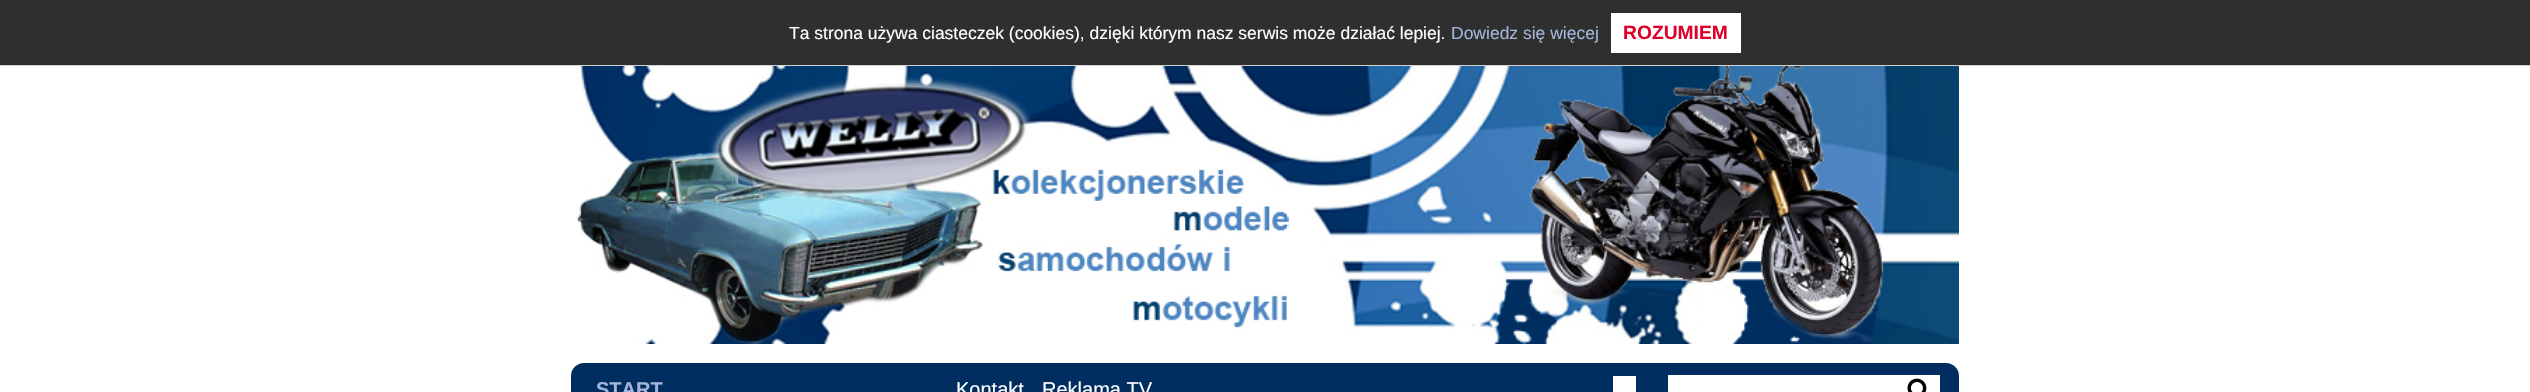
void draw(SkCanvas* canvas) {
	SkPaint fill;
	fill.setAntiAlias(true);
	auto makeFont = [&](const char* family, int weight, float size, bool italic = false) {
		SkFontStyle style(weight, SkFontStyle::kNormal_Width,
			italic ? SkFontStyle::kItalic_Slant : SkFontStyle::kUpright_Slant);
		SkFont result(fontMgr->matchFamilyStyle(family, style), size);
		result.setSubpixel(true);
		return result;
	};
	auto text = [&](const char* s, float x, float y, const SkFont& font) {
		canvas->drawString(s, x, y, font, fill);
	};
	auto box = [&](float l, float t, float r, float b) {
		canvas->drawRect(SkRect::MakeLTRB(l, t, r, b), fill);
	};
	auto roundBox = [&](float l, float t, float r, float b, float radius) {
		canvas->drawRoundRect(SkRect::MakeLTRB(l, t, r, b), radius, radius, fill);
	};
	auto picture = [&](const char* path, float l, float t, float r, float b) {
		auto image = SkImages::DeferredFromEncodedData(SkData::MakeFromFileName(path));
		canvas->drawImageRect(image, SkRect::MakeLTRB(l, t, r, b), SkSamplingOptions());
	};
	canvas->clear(0xFFFFFFFF);
	fill.setColor(0xFF2F2F2F);
	box(0, 0, 2530, 65);
	fill.setColor(0xFFD3D0D0);
	box(0, 65, 2530, 66);
	fill.setColor(0xFFFFFFFF);
	box(1611, 13, 1741, 53);
	picture("image0.png", 576, 66, 1959, 344);
	fill.setColor(0xFF002E60);
	roundBox(571, 363, 1959, 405, 13);
	fill.setColor(0xFFFFFFFF);
	box(1613, 376, 1636, 392);
	box(1668, 375, 1940, 392);
	picture("image1.png", 1907, 378, 1927, 392);
	auto font1 = makeFont("Liberation Sans", 400, 17.5f);
	text("Ta strona używa ciasteczek (cookies), dzięki którym nasz serwis może działać lepiej.", 789, 39, font1);
	fill.setColor(0xFFA3B5DA);
	text("Dowiedz się więcej", 1451, 39, font1);
	auto font2 = makeFont("Liberation Sans", 700, 19.25f);
	fill.setColor(0xFFDE0029);
	text("ROZUMIEM", 1623, 39, font2);
	auto font3 = makeFont("Liberation Sans", 700, 20);
	fill.setColor(0xFFA3B5DA);
	text("START", 596, 396, font3);
	auto font4 = makeFont("Liberation Sans", 400, 20);
	fill.setColor(0xFFFFFFFF);
	text("Kontakt", 956, 396, font4);
	text("Reklama TV", 1042, 396, font4);
}
